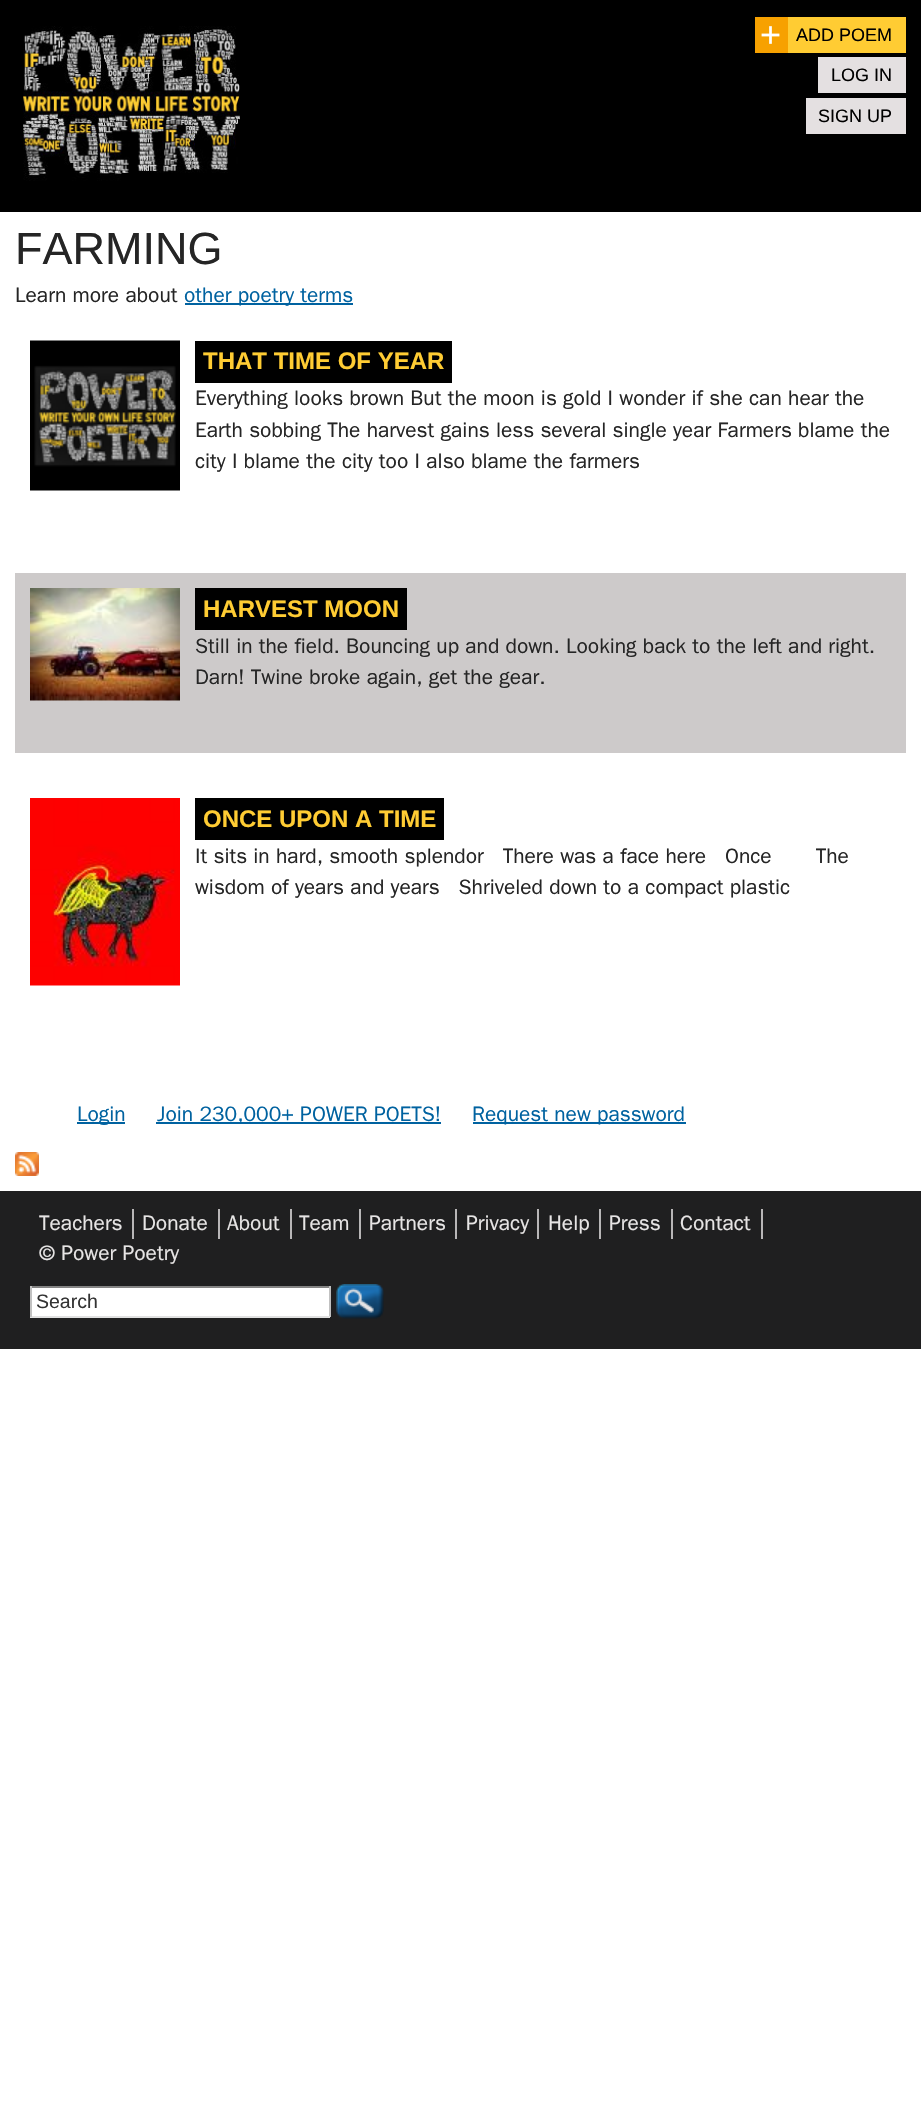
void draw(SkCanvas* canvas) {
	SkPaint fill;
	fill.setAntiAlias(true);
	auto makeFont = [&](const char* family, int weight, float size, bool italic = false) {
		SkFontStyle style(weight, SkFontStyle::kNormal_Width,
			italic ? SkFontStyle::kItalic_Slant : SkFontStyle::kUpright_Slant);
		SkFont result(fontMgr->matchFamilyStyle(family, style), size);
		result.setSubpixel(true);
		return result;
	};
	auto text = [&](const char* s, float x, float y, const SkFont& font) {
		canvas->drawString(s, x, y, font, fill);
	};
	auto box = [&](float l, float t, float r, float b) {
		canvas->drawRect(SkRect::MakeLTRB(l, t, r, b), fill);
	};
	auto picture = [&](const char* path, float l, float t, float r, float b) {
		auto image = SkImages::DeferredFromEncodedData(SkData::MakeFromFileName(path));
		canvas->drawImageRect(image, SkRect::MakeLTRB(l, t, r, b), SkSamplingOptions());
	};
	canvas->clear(0xFFFFFFFF);
	fill.setColor(0xFF000000);
	box(0, 0, 921, 212);
	picture("image0.png", 23, 26, 240, 181);
	fill.setColor(0xFFFFCC33);
	box(788, 17, 906, 53);
	fill.setColor(0xFFF7A100);
	box(755, 17, 788, 53);
	fill.setColor(0xFFE4E0E1);
	box(818, 57, 906, 93);
	box(806, 98, 906, 134);
	fill.setColor(0xFF0062A0);
	box(185, 303, 353, 305);
	picture("image1.png", 30, 340, 180, 491);
	fill.setColor(0xFF000000);
	box(195, 341, 452, 383);
	fill.setColor(0xFFCDCACA);
	box(15, 573, 906, 753);
	picture("image2.png", 30, 588, 180, 701);
	fill.setColor(0xFF000000);
	box(195, 588, 407, 630);
	picture("image3.png", 30, 798, 180, 986);
	box(195, 798, 444, 840);
	fill.setColor(0xFF0062A0);
	box(77, 1122, 125, 1124);
	box(156, 1122, 441, 1124);
	box(473, 1122, 686, 1124);
	picture("image4.png", 15, 1152, 39, 1176);
	fill.setColor(0xFF1F1F20);
	box(0, 1191, 921, 1349);
	fill.setColor(0xFFB8B6B7);
	box(132, 1209, 134, 1239);
	box(218, 1209, 220, 1239);
	box(290, 1209, 292, 1239);
	box(359, 1209, 361, 1239);
	box(455, 1209, 457, 1239);
	box(537, 1209, 539, 1239);
	box(599, 1209, 601, 1239);
	box(671, 1209, 673, 1239);
	box(761, 1209, 763, 1239);
	fill.setColor(0xFFFFFFFF);
	box(32, 1288, 329, 1316);
	fill.setColor(0xFF848484);
	box(30, 1286, 330, 1288);
	fill.setColor(0xFFC1C1C1);
	box(329, 1286, 331, 1317);
	fill.setColor(0xFFE1E1E1);
	box(30, 1316, 330, 1318);
	fill.setColor(0xFFC1C1C1);
	box(30, 1286, 32, 1317);
	picture("image5.png", 336, 1284, 384, 1319);
	auto font1 = makeFont("Liberation Sans", 400, 36);
	fill.setColor(0xFFFFFFFF);
	text("+", 760, 47, font1);
	auto font2 = makeFont("Liberation Sans", 400, 18);
	fill.setColor(0xFF000000);
	text("ADD POEM", 796, 41, font2);
	text("LOG IN", 831, 81, font2);
	text("SIGN UP", 818, 122, font2);
	auto font3 = makeFont("Liberation Sans", 400, 45);
	fill.setColor(0xFF252525);
	text("FARMING", 15, 264, font3);
	auto font4 = makeFont("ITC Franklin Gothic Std", 400, 21);
	text("Learn more about", 15, 302, font4);
	fill.setColor(0xFF0062A0);
	text("other poetry terms", 184, 302, font4);
	auto font5 = makeFont("Liberation Sans", 700, 24);
	fill.setColor(0xFFFFCC33);
	text("THAT TIME OF YEAR", 203, 369, font5);
	fill.setColor(0xFF252525);
	text("Everything looks brown But the moon is gold I wonder if she can hear the", 195, 405, font4);
	text("Earth sobbing The harvest gains less several single year Farmers blame the", 195, 437, font4);
	text("city I blame the city too I also blame the farmers", 195, 468, font4);
	fill.setColor(0xFFFFCC33);
	text("HARVEST MOON", 203, 617, font5);
	fill.setColor(0xFF252525);
	text("Still in the field. Bouncing up and down. Looking back to the left and right.", 195, 653, font4);
	text("Darn! Twine broke again, get the gear.", 195, 684, font4);
	fill.setColor(0xFFFFCC33);
	text("ONCE UPON A TIME", 203, 827, font5);
	fill.setColor(0xFF252525);
	text("It sits in hard, smooth splendor   There was a face here   Once       The", 195, 863, font4);
	text("wisdom of years and years   Shriveled down to a compact plastic", 195, 894, font4);
	fill.setColor(0xFF0062A0);
	text("Login", 77, 1121, font4);
	text("Join 230,000+ POWER POETS!", 157, 1121, font4);
	text("Request new password", 472, 1121, font4);
	fill.setColor(0xFFE7E5E5);
	text("Teachers", 39, 1230, font4);
	text("Donate", 142, 1230, font4);
	text("About", 227, 1230, font4);
	text("Team", 299, 1230, font4);
	text("Partners", 369, 1230, font4);
	text("Privacy", 466, 1230, font4);
	text("Help", 548, 1230, font4);
	text("Press", 609, 1230, font4);
	text("Contact", 680, 1230, font4);
	text("© Power Poetry", 39, 1260, font4);
	auto font6 = makeFont("Liberation Sans", 400, 19.5f);
	fill.setColor(0xFF333333);
	text("Search", 36, 1308, font6);
}
